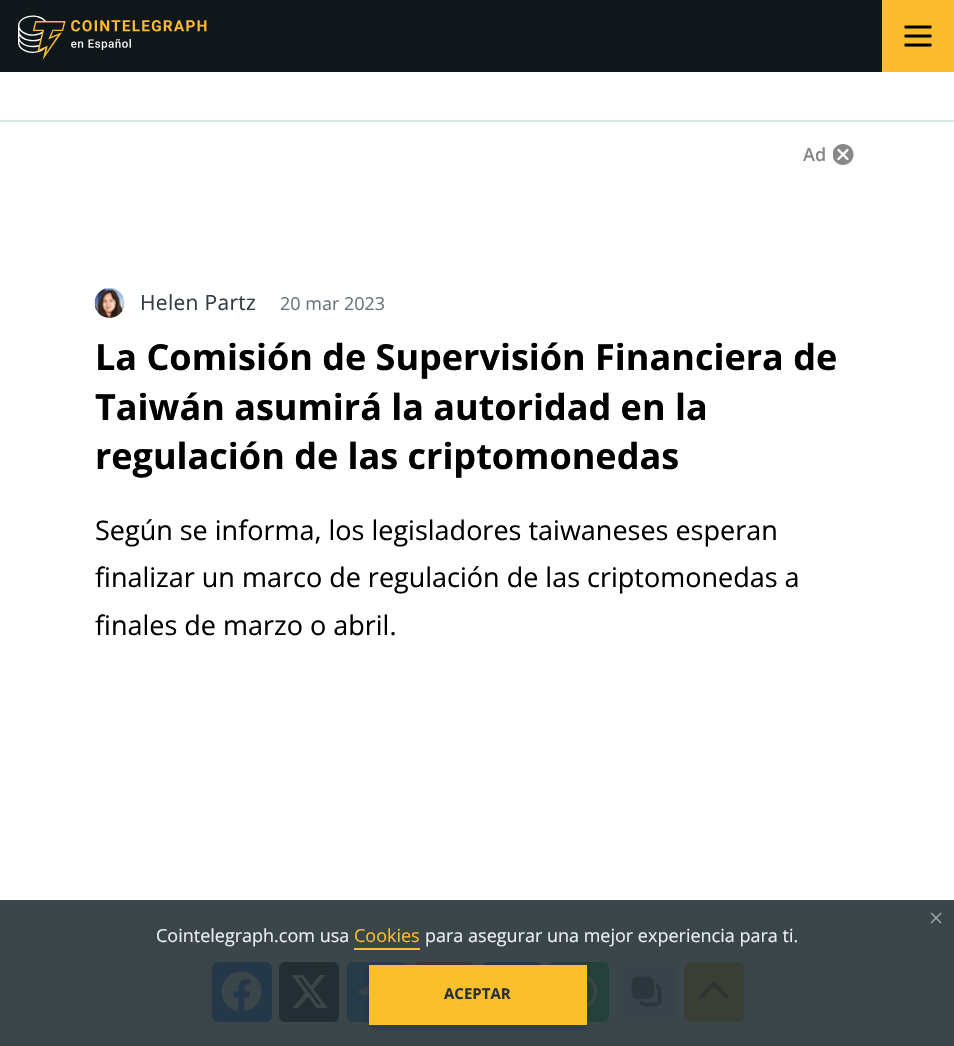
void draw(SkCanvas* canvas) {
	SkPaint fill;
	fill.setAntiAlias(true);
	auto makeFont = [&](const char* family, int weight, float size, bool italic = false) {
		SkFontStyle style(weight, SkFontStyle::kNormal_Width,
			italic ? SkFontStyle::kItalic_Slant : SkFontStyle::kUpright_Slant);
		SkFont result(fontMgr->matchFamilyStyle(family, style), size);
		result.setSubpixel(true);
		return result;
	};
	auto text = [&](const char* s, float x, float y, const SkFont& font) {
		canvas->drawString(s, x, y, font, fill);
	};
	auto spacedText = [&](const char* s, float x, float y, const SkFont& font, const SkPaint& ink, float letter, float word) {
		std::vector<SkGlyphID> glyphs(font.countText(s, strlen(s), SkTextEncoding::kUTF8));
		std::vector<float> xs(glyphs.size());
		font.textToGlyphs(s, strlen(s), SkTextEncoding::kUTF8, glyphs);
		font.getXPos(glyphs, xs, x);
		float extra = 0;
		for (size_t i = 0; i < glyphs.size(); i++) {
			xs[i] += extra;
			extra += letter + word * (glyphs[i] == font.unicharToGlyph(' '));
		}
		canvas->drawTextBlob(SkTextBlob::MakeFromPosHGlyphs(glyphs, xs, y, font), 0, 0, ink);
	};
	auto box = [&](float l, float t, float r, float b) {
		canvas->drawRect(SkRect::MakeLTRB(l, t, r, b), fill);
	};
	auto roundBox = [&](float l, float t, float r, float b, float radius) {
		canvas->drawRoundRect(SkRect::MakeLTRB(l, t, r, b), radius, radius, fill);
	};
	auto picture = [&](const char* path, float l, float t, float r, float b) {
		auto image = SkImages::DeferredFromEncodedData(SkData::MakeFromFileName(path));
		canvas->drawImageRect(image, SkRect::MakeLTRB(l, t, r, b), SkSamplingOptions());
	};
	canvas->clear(0xFFFFFFFF);
	fill.setColor(0xFF3B464B);
	box(0, 900, 954, 1046);
	fill.setColor(0xFF10171B);
	box(0, 0, 882, 72);
	picture("image0.png", 18, 15, 207, 60);
	fill.setColor(0xFFFABC2C);
	box(882, 0, 954, 72);
	picture("image1.png", 904, 25, 932, 47);
	fill.setColor(0xFFDEE5E8);
	box(0, 120, 954, 122);
	picture("image2.png", 833, 144, 854, 165);
	picture("image3.png", 94, 288, 125, 318);
	picture("image4.png", 212, 962, 272, 1022);
	fill.setColor(0xFF232E34);
	roundBox(279, 962, 339, 1022, 6);
	fill.setColor(0xFF3B464B);
	canvas->drawPath(SkPathBuilder().moveTo(320, 975).lineTo(325.5f, 975).lineTo(313.5f, 989).lineTo(327.5f, 1008).lineTo(316.5f, 1008).lineTo(308, 996.5f).lineTo(298, 1008).lineTo(292.5f, 1008).lineTo(305, 993).lineTo(291.5f, 975).lineTo(303, 975).lineTo(311, 985.5f).close().moveTo(318, 1004.5f).lineTo(321, 1004.5f).lineTo(301.5f, 978).lineTo(298, 978).close().detach(), fill);
	picture("image5.png", 347, 962, 407, 1022);
	picture("image6.png", 414, 962, 474, 965);
	picture("image7.png", 482, 962, 542, 965);
	picture("image8.png", 549, 962, 609, 1022);
	picture("image9.png", 617, 962, 677, 1022);
	picture("image10.png", 684, 962, 744, 1022);
	picture("image11.png", 930, 912, 942, 924);
	fill.setColor(0xFFFABF2C);
	box(354, 948, 420, 950);
	fill.setColor(0x33000000);
	fill.setMaskFilter(SkMaskFilter::MakeBlur(kNormal_SkBlurStyle, 3));
	canvas->drawRect(SkRect::MakeLTRB(369, 968, 587, 1028), fill);
	fill.setMaskFilter(nullptr);
	fill.setColor(0xFFFABF2B);
	box(369, 965, 587, 1025);
	auto font1 = makeFont("Open Sans", 600, 18);
	fill.setColor(0xFF888888);
	text("Ad", 803, 161, font1);
	auto font2 = makeFont("Open Sans", 400, 21);
	fill.setColor(0xFF303D43);
	spacedText("Helen Partz", 140, 310, font2, fill, 0.3f, 0);
	auto font3 = makeFont("Open Sans", 400, 18);
	fill.setColor(0xFF66747C);
	text("20 mar 2023", 280, 310, font3);
	auto font4 = makeFont("Open Sans", 700, 36);
	fill.setColor(0xFF000000);
	text("La Comisión de Supervisión Financiera de", 95, 370, font4);
	text("Taiwán asumirá la autoridad en la", 95, 420, font4);
	text("regulación de las criptomonedas", 95, 469, font4);
	auto font5 = makeFont("Open Sans", 400, 27);
	text("Según se informa, los legisladores taiwaneses esperan", 95, 540, font5);
	text("finalizar un marco de regulación de las criptomonedas a", 95, 587, font5);
	text("finales de marzo o abril.", 95, 635, font5);
	fill.setColor(0xFFECEFF1);
	text("Cointelegraph.com usa", 156, 942, font3);
	fill.setColor(0xFFFABF2C);
	text("Cookies", 354, 942, font3);
	fill.setColor(0xFFECEFF1);
	text("para asegurar una mejor experiencia para ti.", 425, 942, font3);
	auto font6 = makeFont("Open Sans", 700, 15);
	fill.setColor(0xFF253137);
	text("ACEPTAR", 444, 999, font6);
}
